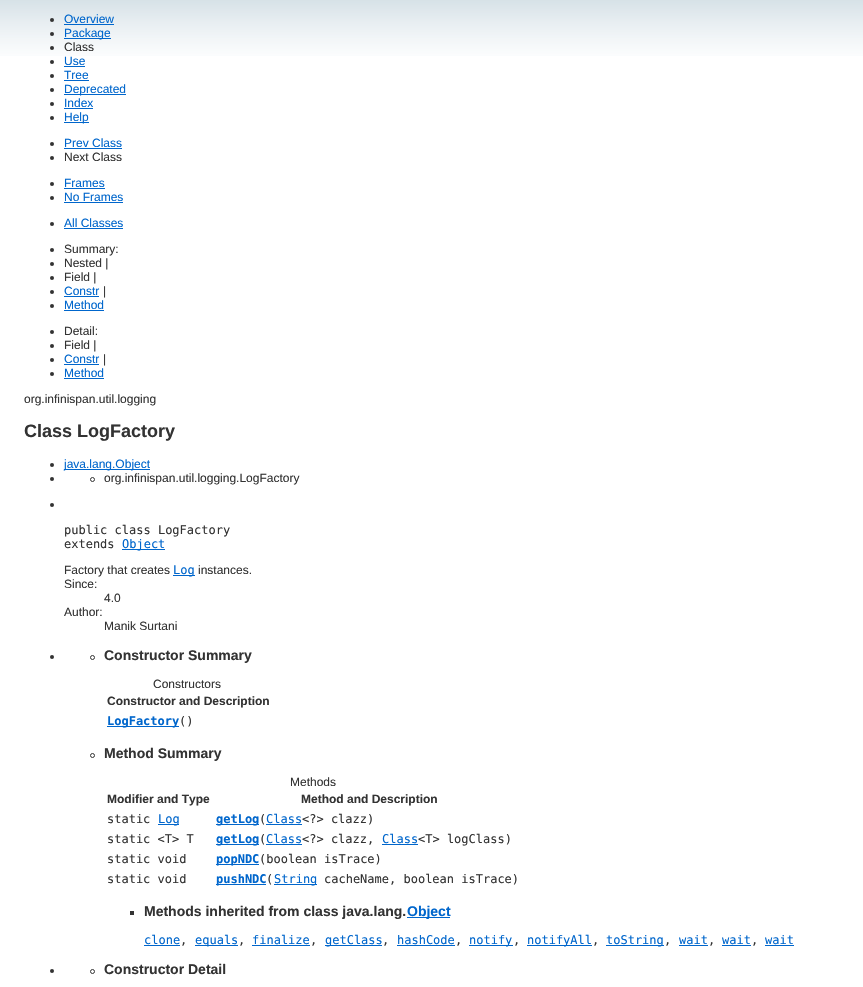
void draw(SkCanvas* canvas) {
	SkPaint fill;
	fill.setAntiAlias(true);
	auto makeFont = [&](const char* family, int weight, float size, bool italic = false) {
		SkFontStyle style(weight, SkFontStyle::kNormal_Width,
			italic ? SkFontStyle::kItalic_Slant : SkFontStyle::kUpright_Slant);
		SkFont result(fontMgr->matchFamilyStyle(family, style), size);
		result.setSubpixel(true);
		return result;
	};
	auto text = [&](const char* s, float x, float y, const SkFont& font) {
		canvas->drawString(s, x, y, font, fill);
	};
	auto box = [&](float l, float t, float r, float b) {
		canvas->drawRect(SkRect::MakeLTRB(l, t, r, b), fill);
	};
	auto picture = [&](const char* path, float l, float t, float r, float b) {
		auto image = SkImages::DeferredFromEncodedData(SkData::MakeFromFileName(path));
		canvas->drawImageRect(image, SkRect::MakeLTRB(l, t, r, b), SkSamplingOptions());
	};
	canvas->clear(0xFFFFFFFF);
	picture("image0.png", 0, 0, 863, 56);
	fill.setColor(0xFF333333);
	canvas->drawCircle(52, 20, 2, fill);
	fill.setColor(0xFF0066CC);
	box(64, 24, 114, 25);
	fill.setColor(0xFF333333);
	canvas->drawCircle(52, 34, 2, fill);
	fill.setColor(0xFF0066CC);
	box(64, 38, 111, 39);
	fill.setColor(0xFF333333);
	canvas->drawCircle(52, 48, 2, fill);
	canvas->drawCircle(52, 62, 2, fill);
	fill.setColor(0xFF0066CC);
	box(64, 66, 85, 67);
	fill.setColor(0xFF333333);
	canvas->drawCircle(52, 76, 2, fill);
	fill.setColor(0xFF0066CC);
	box(64, 80, 89, 81);
	fill.setColor(0xFF333333);
	canvas->drawCircle(52, 90, 2, fill);
	fill.setColor(0xFF0066CC);
	box(64, 94, 126, 95);
	fill.setColor(0xFF333333);
	canvas->drawCircle(52, 104, 2, fill);
	fill.setColor(0xFF0066CC);
	box(64, 108, 93, 109);
	fill.setColor(0xFF333333);
	canvas->drawCircle(52, 118, 2, fill);
	fill.setColor(0xFF0066CC);
	box(64, 122, 89, 123);
	fill.setColor(0xFF333333);
	canvas->drawCircle(52, 144, 2, fill);
	fill.setColor(0xFF0066CC);
	box(64, 148, 122, 149);
	fill.setColor(0xFF333333);
	canvas->drawCircle(52, 158, 2, fill);
	canvas->drawCircle(52, 184, 2, fill);
	fill.setColor(0xFF0066CC);
	box(64, 188, 105, 189);
	fill.setColor(0xFF333333);
	canvas->drawCircle(52, 198, 2, fill);
	fill.setColor(0xFF0066CC);
	box(64, 202, 123, 203);
	fill.setColor(0xFF333333);
	canvas->drawCircle(52, 224, 2, fill);
	fill.setColor(0xFF0066CC);
	box(64, 228, 123, 229);
	fill.setColor(0xFF333333);
	canvas->drawCircle(52, 250, 2, fill);
	canvas->drawCircle(52, 264, 2, fill);
	canvas->drawCircle(52, 278, 2, fill);
	canvas->drawCircle(52, 292, 2, fill);
	fill.setColor(0xFF0066CC);
	box(64, 296, 99, 297);
	fill.setColor(0xFF333333);
	canvas->drawCircle(52, 306, 2, fill);
	fill.setColor(0xFF0066CC);
	box(64, 310, 104, 311);
	fill.setColor(0xFF333333);
	canvas->drawCircle(52, 332, 2, fill);
	canvas->drawCircle(52, 346, 2, fill);
	canvas->drawCircle(52, 360, 2, fill);
	fill.setColor(0xFF0066CC);
	box(64, 364, 99, 365);
	fill.setColor(0xFF333333);
	canvas->drawCircle(52, 374, 2, fill);
	fill.setColor(0xFF0066CC);
	box(64, 378, 104, 379);
	fill.setColor(0xFF333333);
	canvas->drawCircle(52, 465, 2, fill);
	fill.setColor(0xFF0066CC);
	box(64, 469, 150, 470);
	fill.setColor(0xFF333333);
	canvas->drawCircle(52, 479, 2, fill);
	fill.setStyle(SkPaint::kStroke_Style);
	fill.setStrokeWidth(1);
	canvas->drawCircle(92.5f, 479.5f, 2, fill);
	fill.setStyle(SkPaint::kFill_Style);
	canvas->drawCircle(52, 505, 2, fill);
	fill.setColor(0xFF0066CC);
	box(122, 549, 165, 550);
	box(173, 575, 195, 576);
	fill.setColor(0xFF333333);
	canvas->drawCircle(52, 657, 2, fill);
	fill.setStyle(SkPaint::kStroke_Style);
	canvas->drawCircle(92.5f, 657.5f, 2, fill);
	fill.setStyle(SkPaint::kFill_Style);
	fill.setColor(0xFF0066CC);
	box(107, 726, 179, 727);
	fill.setStyle(SkPaint::kStroke_Style);
	fill.setColor(0xFF333333);
	canvas->drawCircle(92.5f, 755.5f, 2, fill);
	fill.setStyle(SkPaint::kFill_Style);
	fill.setColor(0xFF0066CC);
	box(158, 824, 179, 825);
	box(216, 824, 259, 825);
	box(266, 824, 302, 825);
	box(216, 844, 259, 845);
	box(266, 844, 302, 845);
	box(382, 844, 418, 845);
	box(216, 864, 259, 865);
	box(216, 884, 266, 885);
	box(274, 884, 317, 885);
	fill.setColor(0xFF333333);
	box(130, 911, 134, 915);
	fill.setColor(0xFF0066CC);
	box(407, 917, 450, 918);
	box(144, 945, 180, 946);
	box(195, 945, 238, 946);
	box(252, 945, 310, 946);
	box(325, 945, 382, 946);
	box(397, 945, 455, 946);
	box(469, 945, 513, 946);
	box(527, 945, 592, 946);
	box(606, 945, 664, 946);
	box(679, 945, 708, 946);
	box(722, 945, 751, 946);
	box(765, 945, 794, 946);
	fill.setColor(0xFF333333);
	canvas->drawCircle(52, 971, 2, fill);
	fill.setStyle(SkPaint::kStroke_Style);
	canvas->drawCircle(92.5f, 971.5f, 2, fill);
	auto font1 = makeFont("Liberation Sans", 400, 12);
	fill.setStyle(SkPaint::kFill_Style);
	fill.setColor(0xFF0066CC);
	text("Overview", 64, 23, font1);
	text("Package", 64, 37, font1);
	fill.setColor(0xFF333333);
	text("Class", 64, 51, font1);
	fill.setColor(0xFF0066CC);
	text("Use", 64, 65, font1);
	text("Tree", 64, 79, font1);
	text("Deprecated", 64, 93, font1);
	text("Index", 64, 107, font1);
	text("Help", 64, 121, font1);
	text("Prev Class", 64, 147, font1);
	fill.setColor(0xFF333333);
	text("Next Class", 64, 161, font1);
	fill.setColor(0xFF0066CC);
	text("Frames", 64, 187, font1);
	text("No Frames", 64, 201, font1);
	text("All Classes", 64, 227, font1);
	fill.setColor(0xFF333333);
	text("Summary:", 64, 253, font1);
	text("Nested |", 64, 267, font1);
	text("Field |", 64, 281, font1);
	fill.setColor(0xFF0066CC);
	text("Constr", 64, 295, font1);
	fill.setColor(0xFF333333);
	text("|", 103, 295, font1);
	fill.setColor(0xFF0066CC);
	text("Method", 64, 309, font1);
	fill.setColor(0xFF333333);
	text("Detail:", 64, 335, font1);
	text("Field |", 64, 349, font1);
	fill.setColor(0xFF0066CC);
	text("Constr", 64, 363, font1);
	fill.setColor(0xFF333333);
	text("|", 103, 363, font1);
	fill.setColor(0xFF0066CC);
	text("Method", 64, 377, font1);
	fill.setColor(0xFF333333);
	text("org.infinispan.util.logging", 24, 403, font1);
	auto font2 = makeFont("Liberation Sans", 700, 18);
	text("Class LogFactory", 24, 437, font2);
	fill.setColor(0xFF0066CC);
	text("java.lang.Object", 64, 468, font1);
	fill.setColor(0xFF333333);
	text("org.infinispan.util.logging.LogFactory", 104, 482, font1);
	auto font3 = makeFont("DejaVu Sans Mono", 400, 12);
	text("public class LogFactory", 64, 534, font3);
	text("extends", 64, 548, font3);
	fill.setColor(0xFF0066CC);
	text("Object", 122, 548, font3);
	fill.setColor(0xFF333333);
	text("Factory that creates", 64, 574, font1);
	fill.setColor(0xFF0066CC);
	text("Log", 173, 574, font3);
	fill.setColor(0xFF333333);
	text("instances.", 198, 574, font1);
	text("Since:", 64, 588, font1);
	text("4.0", 104, 602, font1);
	text("Author:", 64, 616, font1);
	text("Manik Surtani", 104, 630, font1);
	auto font4 = makeFont("Liberation Sans", 700, 14);
	text("Constructor Summary", 104, 660, font4);
	text("Constructors", 153, 688, font1);
	auto font5 = makeFont("Liberation Sans", 700, 12);
	text("Constructor and Description", 107, 705, font5);
	auto font6 = makeFont("DejaVu Sans Mono", 700, 12);
	fill.setColor(0xFF0066CC);
	text("LogFactory", 107, 725, font6);
	fill.setColor(0xFF333333);
	text("()", 179, 725, font3);
	text("Method Summary", 104, 758, font4);
	text("Methods", 290, 786, font1);
	text("Modifier and Type", 107, 803, font5);
	text("Method and Description", 301, 803, font5);
	text("static", 107, 823, font3);
	fill.setColor(0xFF0066CC);
	text("Log", 158, 823, font3);
	text("getLog", 216, 823, font6);
	fill.setColor(0xFF333333);
	text("(", 259, 823, font3);
	fill.setColor(0xFF0066CC);
	text("Class", 266, 823, font3);
	fill.setColor(0xFF333333);
	text("<?> clazz)", 302, 823, font3);
	text("static <T> T", 107, 843, font3);
	fill.setColor(0xFF0066CC);
	text("getLog", 216, 843, font6);
	fill.setColor(0xFF333333);
	text("(", 259, 843, font3);
	fill.setColor(0xFF0066CC);
	text("Class", 266, 843, font3);
	fill.setColor(0xFF333333);
	text("<?> clazz,", 302, 843, font3);
	fill.setColor(0xFF0066CC);
	text("Class", 382, 843, font3);
	fill.setColor(0xFF333333);
	text("<T> logClass)", 418, 843, font3);
	text("static void", 107, 863, font3);
	fill.setColor(0xFF0066CC);
	text("popNDC", 216, 863, font6);
	fill.setColor(0xFF333333);
	text("(boolean isTrace)", 259, 863, font3);
	text("static void", 107, 883, font3);
	fill.setColor(0xFF0066CC);
	text("pushNDC", 216, 883, font6);
	fill.setColor(0xFF333333);
	text("(", 266, 883, font3);
	fill.setColor(0xFF0066CC);
	text("String", 274, 883, font3);
	fill.setColor(0xFF333333);
	text("cacheName, boolean isTrace)", 324, 883, font3);
	text("Methods inherited from class java.lang.", 144, 916, font4);
	fill.setColor(0xFF0066CC);
	text("Object", 407, 916, font4);
	text("clone", 144, 944, font3);
	fill.setColor(0xFF333333);
	text(",", 180, 944, font3);
	fill.setColor(0xFF0066CC);
	text("equals", 195, 944, font3);
	fill.setColor(0xFF333333);
	text(",", 238, 944, font3);
	fill.setColor(0xFF0066CC);
	text("finalize", 252, 944, font3);
	fill.setColor(0xFF333333);
	text(",", 310, 944, font3);
	fill.setColor(0xFF0066CC);
	text("getClass", 325, 944, font3);
	fill.setColor(0xFF333333);
	text(",", 382, 944, font3);
	fill.setColor(0xFF0066CC);
	text("hashCode", 397, 944, font3);
	fill.setColor(0xFF333333);
	text(",", 455, 944, font3);
	fill.setColor(0xFF0066CC);
	text("notify", 469, 944, font3);
	fill.setColor(0xFF333333);
	text(",", 513, 944, font3);
	fill.setColor(0xFF0066CC);
	text("notifyAll", 527, 944, font3);
	fill.setColor(0xFF333333);
	text(",", 592, 944, font3);
	fill.setColor(0xFF0066CC);
	text("toString", 606, 944, font3);
	fill.setColor(0xFF333333);
	text(",", 664, 944, font3);
	fill.setColor(0xFF0066CC);
	text("wait", 679, 944, font3);
	fill.setColor(0xFF333333);
	text(",", 708, 944, font3);
	fill.setColor(0xFF0066CC);
	text("wait", 722, 944, font3);
	fill.setColor(0xFF333333);
	text(",", 751, 944, font3);
	fill.setColor(0xFF0066CC);
	text("wait", 765, 944, font3);
	fill.setColor(0xFF333333);
	text("Constructor Detail", 104, 974, font4);
}
